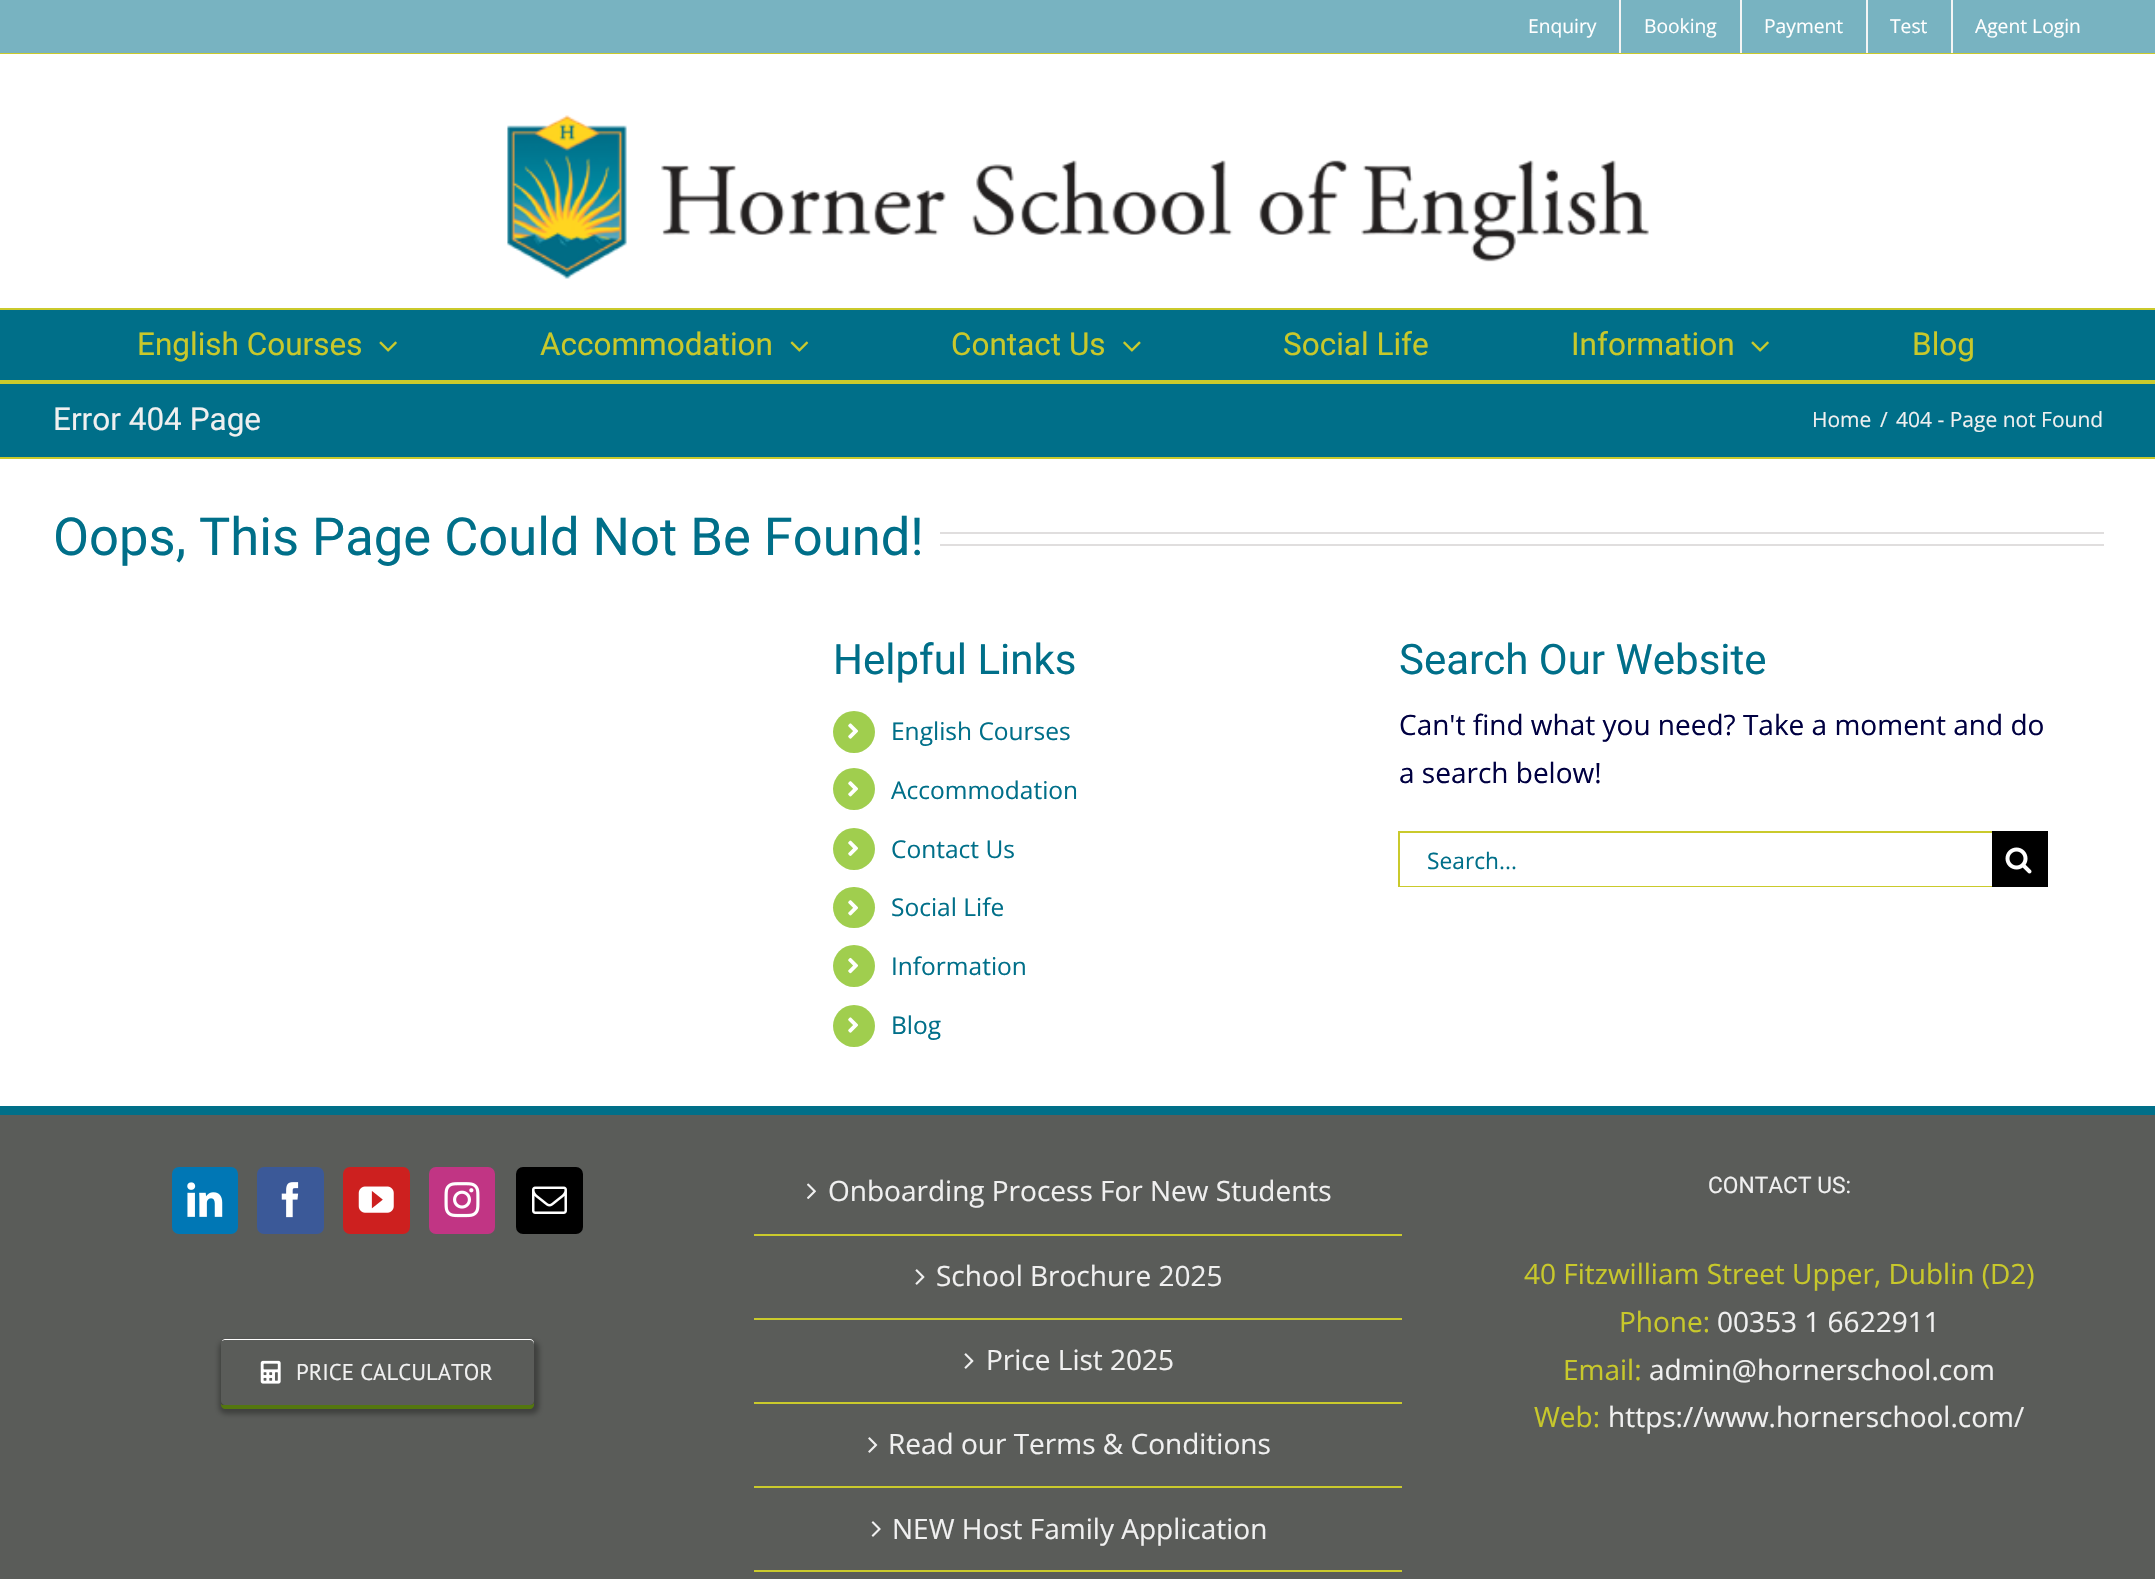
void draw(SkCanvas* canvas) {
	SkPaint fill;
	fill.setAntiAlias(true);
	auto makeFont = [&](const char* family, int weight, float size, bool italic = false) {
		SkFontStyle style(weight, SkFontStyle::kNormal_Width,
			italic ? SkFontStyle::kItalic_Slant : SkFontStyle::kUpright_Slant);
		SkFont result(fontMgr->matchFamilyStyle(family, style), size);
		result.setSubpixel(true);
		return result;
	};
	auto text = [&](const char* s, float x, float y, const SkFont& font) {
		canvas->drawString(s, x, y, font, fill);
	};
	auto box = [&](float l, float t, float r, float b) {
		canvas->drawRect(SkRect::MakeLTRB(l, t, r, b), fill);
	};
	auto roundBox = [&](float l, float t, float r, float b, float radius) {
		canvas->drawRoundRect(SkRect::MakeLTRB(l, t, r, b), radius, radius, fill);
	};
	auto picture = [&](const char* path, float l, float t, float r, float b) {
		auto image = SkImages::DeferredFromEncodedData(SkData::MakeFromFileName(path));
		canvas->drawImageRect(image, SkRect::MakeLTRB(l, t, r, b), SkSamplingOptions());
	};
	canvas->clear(0xFFFFFFFF);
	fill.setColor(0xFF78B3C1);
	box(0, 0, 2155, 53);
	fill.setColor(0xFFCACA2C);
	box(0, 53, 2155, 54);
	fill.setColor(0xFFF5F5F5);
	box(1619, 0, 1621, 53);
	box(1740, 0, 1742, 53);
	box(1866, 0, 1868, 53);
	box(1951, 0, 1953, 53);
	fill.setColor(0xFFCACA2C);
	box(0, 308, 2155, 310);
	picture("image0.png", 507, 115, 1649, 279);
	fill.setColor(0xFF006F89);
	box(0, 310, 2155, 380);
	picture("image1.png", 379, 341, 397, 352);
	picture("image2.png", 790, 341, 809, 352);
	picture("image3.png", 1123, 341, 1141, 352);
	picture("image1.png", 1751, 341, 1769, 352);
	box(0, 384, 2155, 457);
	fill.setColor(0xFFCACA2C);
	box(0, 380, 2155, 384);
	box(0, 457, 2155, 459);
	fill.setColor(0xFFE0DEDE);
	box(940, 532, 2104, 534);
	box(940, 544, 2104, 546);
	fill.setColor(0xFFA0CE4E);
	canvas->drawCircle(854, 732, 21, fill);
	picture("image4.png", 848, 723, 858, 739);
	canvas->drawCircle(854, 789, 21, fill);
	picture("image5.png", 848, 781, 858, 797);
	canvas->drawCircle(854, 849, 21, fill);
	picture("image6.png", 848, 840, 858, 856);
	roundBox(833, 887, 875, 928, 20.5f);
	picture("image5.png", 848, 900, 858, 916);
	canvas->drawCircle(854, 966, 21, fill);
	picture("image7.png", 848, 957, 858, 974);
	canvas->drawCircle(854, 1026, 21, fill);
	picture("image4.png", 848, 1017, 858, 1033);
	fill.setColor(0xFFCACA2C);
	box(1398, 831, 1992, 833);
	box(1398, 886, 1992, 887);
	box(1398, 831, 1400, 887);
	fill.setColor(0xFF000000);
	box(1992, 831, 2048, 887);
	picture("image8.png", 2005, 847, 2032, 874);
	fill.setColor(0xFF5A5C59);
	box(0, 1115, 2155, 1579);
	fill.setColor(0xFF006F89);
	box(0, 1106, 2155, 1115);
	fill.setColor(0xFF0077B5);
	canvas->drawRoundRect(SkRect::MakeLTRB(173, 1168, 237, 1233), 6, 6, fill);
	fill.setStyle(SkPaint::kStroke_Style);
	fill.setStrokeWidth(2);
	canvas->drawRoundRect(SkRect::MakeLTRB(173, 1168, 237, 1233), 6, 6, fill);
	picture("image9.png", 187, 1182, 223, 1217);
	fill.setStyle(SkPaint::kFill_Style);
	fill.setColor(0xFF3B5998);
	canvas->drawRoundRect(SkRect::MakeLTRB(258, 1168, 323, 1233), 6, 6, fill);
	fill.setStyle(SkPaint::kStroke_Style);
	canvas->drawRoundRect(SkRect::MakeLTRB(258, 1168, 323, 1233), 6, 6, fill);
	picture("image10.png", 281, 1182, 299, 1218);
	fill.setStyle(SkPaint::kFill_Style);
	fill.setColor(0xFFCD201F);
	canvas->drawRoundRect(SkRect::MakeLTRB(344, 1168, 409, 1233), 6, 6, fill);
	fill.setStyle(SkPaint::kStroke_Style);
	canvas->drawRoundRect(SkRect::MakeLTRB(344, 1168, 409, 1233), 6, 6, fill);
	picture("image11.png", 358, 1186, 394, 1213);
	fill.setStyle(SkPaint::kFill_Style);
	fill.setColor(0xFFC13584);
	canvas->drawRoundRect(SkRect::MakeLTRB(430, 1168, 494, 1233), 6, 6, fill);
	fill.setStyle(SkPaint::kStroke_Style);
	canvas->drawRoundRect(SkRect::MakeLTRB(430, 1168, 494, 1233), 6, 6, fill);
	picture("image12.png", 444, 1182, 480, 1218);
	fill.setStyle(SkPaint::kFill_Style);
	fill.setColor(0xFF000000);
	canvas->drawRoundRect(SkRect::MakeLTRB(517, 1168, 582, 1233), 6, 6, fill);
	fill.setStyle(SkPaint::kStroke_Style);
	canvas->drawRoundRect(SkRect::MakeLTRB(517, 1168, 582, 1233), 6, 6, fill);
	picture("image13.png", 532, 1186, 567, 1214);
	canvas->save();
	canvas->clipPath(SkPathBuilder(SkPathFillType::kEvenOdd).moveTo(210, 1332).lineTo(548, 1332).lineTo(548, 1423).lineTo(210, 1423).close().moveTo(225, 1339).lineTo(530, 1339).cubicTo(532, 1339, 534, 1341, 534, 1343).lineTo(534, 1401).cubicTo(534, 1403, 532, 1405, 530, 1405).lineTo(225, 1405).cubicTo(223, 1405, 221, 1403, 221, 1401).lineTo(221, 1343).cubicTo(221, 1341, 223, 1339, 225, 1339).close().detach(), true);
	fill.setStyle(SkPaint::kFill_Style);
	fill.setColor(0x4D000000);
	fill.setMaskFilter(SkMaskFilter::MakeBlur(kNormal_SkBlurStyle, 2.5f));
	canvas->drawRoundRect(SkRect::MakeLTRB(219, 1341, 539, 1414), 7, 7, fill);
	fill.setMaskFilter(nullptr);
	canvas->restore();
	fill.setColor(0xFF54770F);
	canvas->drawPath(SkPathBuilder().moveTo(221, 1404).lineTo(221, 1405).cubicTo(221, 1407, 223, 1409, 225, 1409).lineTo(530, 1409).cubicTo(532, 1409, 534, 1407, 534, 1405).lineTo(534, 1345).lineTo(534, 1402).cubicTo(534, 1404, 532, 1405, 530, 1405).lineTo(224, 1405).cubicTo(223, 1405, 222, 1405, 221, 1404).close().detach(), fill);
	fill.setColor(0xFFFFFFFF);
	canvas->drawPath(SkPathBuilder().moveTo(224, 1340).lineTo(530, 1340).cubicTo(532, 1340, 534, 1342, 534, 1344).lineTo(534, 1343).cubicTo(534, 1341, 532, 1339, 530, 1339).lineTo(225, 1339).cubicTo(224, 1339, 222, 1340, 222, 1341).close().detach(), fill);
	picture("image14.png", 260, 1360, 281, 1384);
	fill.setColor(0xFFCACA2C);
	box(754, 1234, 1402, 1236);
	picture("image15.png", 807, 1183, 816, 1199);
	box(754, 1318, 1402, 1320);
	picture("image16.png", 915, 1269, 925, 1285);
	box(754, 1402, 1402, 1404);
	picture("image16.png", 964, 1353, 974, 1369);
	box(754, 1486, 1402, 1488);
	picture("image17.png", 868, 1437, 878, 1453);
	box(754, 1570, 1402, 1572);
	picture("image18.png", 871, 1521, 881, 1537);
	auto font1 = makeFont("Open Sans", 400, 19.25f);
	fill.setColor(0xFFFFFFFF);
	text("Enquiry", 1528, 33, font1);
	text("Booking", 1644, 33, font1);
	text("Payment", 1764, 33, font1);
	text("Test", 1890, 33, font1);
	text("Agent Login", 1975, 33, font1);
	auto font2 = makeFont("Roboto", 400, 31.5f);
	fill.setColor(0xFFC8C82B);
	text("English Courses", 137, 355, font2);
	text("Accommodation", 540, 355, font2);
	text("Contact Us", 951, 355, font2);
	text("Social Life", 1283, 355, font2);
	text("Information", 1571, 355, font2);
	text("Blog", 1912, 355, font2);
	fill.setColor(0xFFF0F0F0);
	text("Error 404 Page", 53, 430, font2);
	auto font3 = makeFont("Open Sans", 400, 21);
	text("Home", 1812, 427, font3);
	text("/", 1880, 427, font3);
	text("404 - Page not Found", 1896, 427, font3);
	auto font4 = makeFont("Roboto", 400, 52.5f);
	fill.setColor(0xFF006F89);
	text("Oops, This Page Could Not Be Found!", 53, 555, font4);
	auto font5 = makeFont("Roboto", 400, 42);
	text("Helpful Links", 833, 674, font5);
	auto font6 = makeFont("Open Sans", 400, 24.5f);
	text("English Courses", 891, 740, font6);
	text("Accommodation", 891, 799, font6);
	text("Contact Us", 891, 858, font6);
	text("Social Life", 891, 916, font6);
	text("Information", 891, 975, font6);
	text("Blog", 891, 1034, font6);
	text("Search Our Website", 1399, 674, font5);
	auto font7 = makeFont("Open Sans", 400, 28);
	fill.setColor(0xFF000041);
	text("Can't find what you need? Take a moment and do", 1399, 735, font7);
	text("a search below!", 1399, 783, font7);
	auto font8 = makeFont("Open Sans", 400, 22.75f);
	fill.setColor(0xFF006F89);
	text("Search...", 1427, 869, font8);
	auto font9 = makeFont("PT Sans", 400, 22.75f);
	fill.setColor(0xFFF0F0F0);
	text("PRICE CALCULATOR", 296, 1380, font9);
	text("Onboarding Process For New Students", 828, 1201, font7);
	text("School Brochure 2025", 936, 1286, font7);
	text("Price List 2025", 986, 1370, font7);
	text("Read our Terms & Conditions", 888, 1454, font7);
	text("NEW Host Family Application", 892, 1539, font7);
	auto font10 = makeFont("Roboto", 400, 22.75f);
	text("CONTACT US:", 1708, 1193, font10);
	fill.setColor(0xFFC8C82B);
	text("40 Fitzwilliam Street Upper, Dublin (D2)", 1524, 1284, font7);
	text("Phone:", 1619, 1332, font7);
	fill.setColor(0xFFF0F0F0);
	text("00353 1 6622911", 1717, 1332, font7);
	fill.setColor(0xFFC8C82B);
	text("Email:", 1563, 1380, font7);
	fill.setColor(0xFFF0F0F0);
	text("admin@hornerschool.com", 1649, 1380, font7);
	fill.setColor(0xFFC8C82B);
	text("Web:", 1534, 1427, font7);
	fill.setColor(0xFFF0F0F0);
	text("https://www.hornerschool.com/", 1608, 1427, font7);
}
